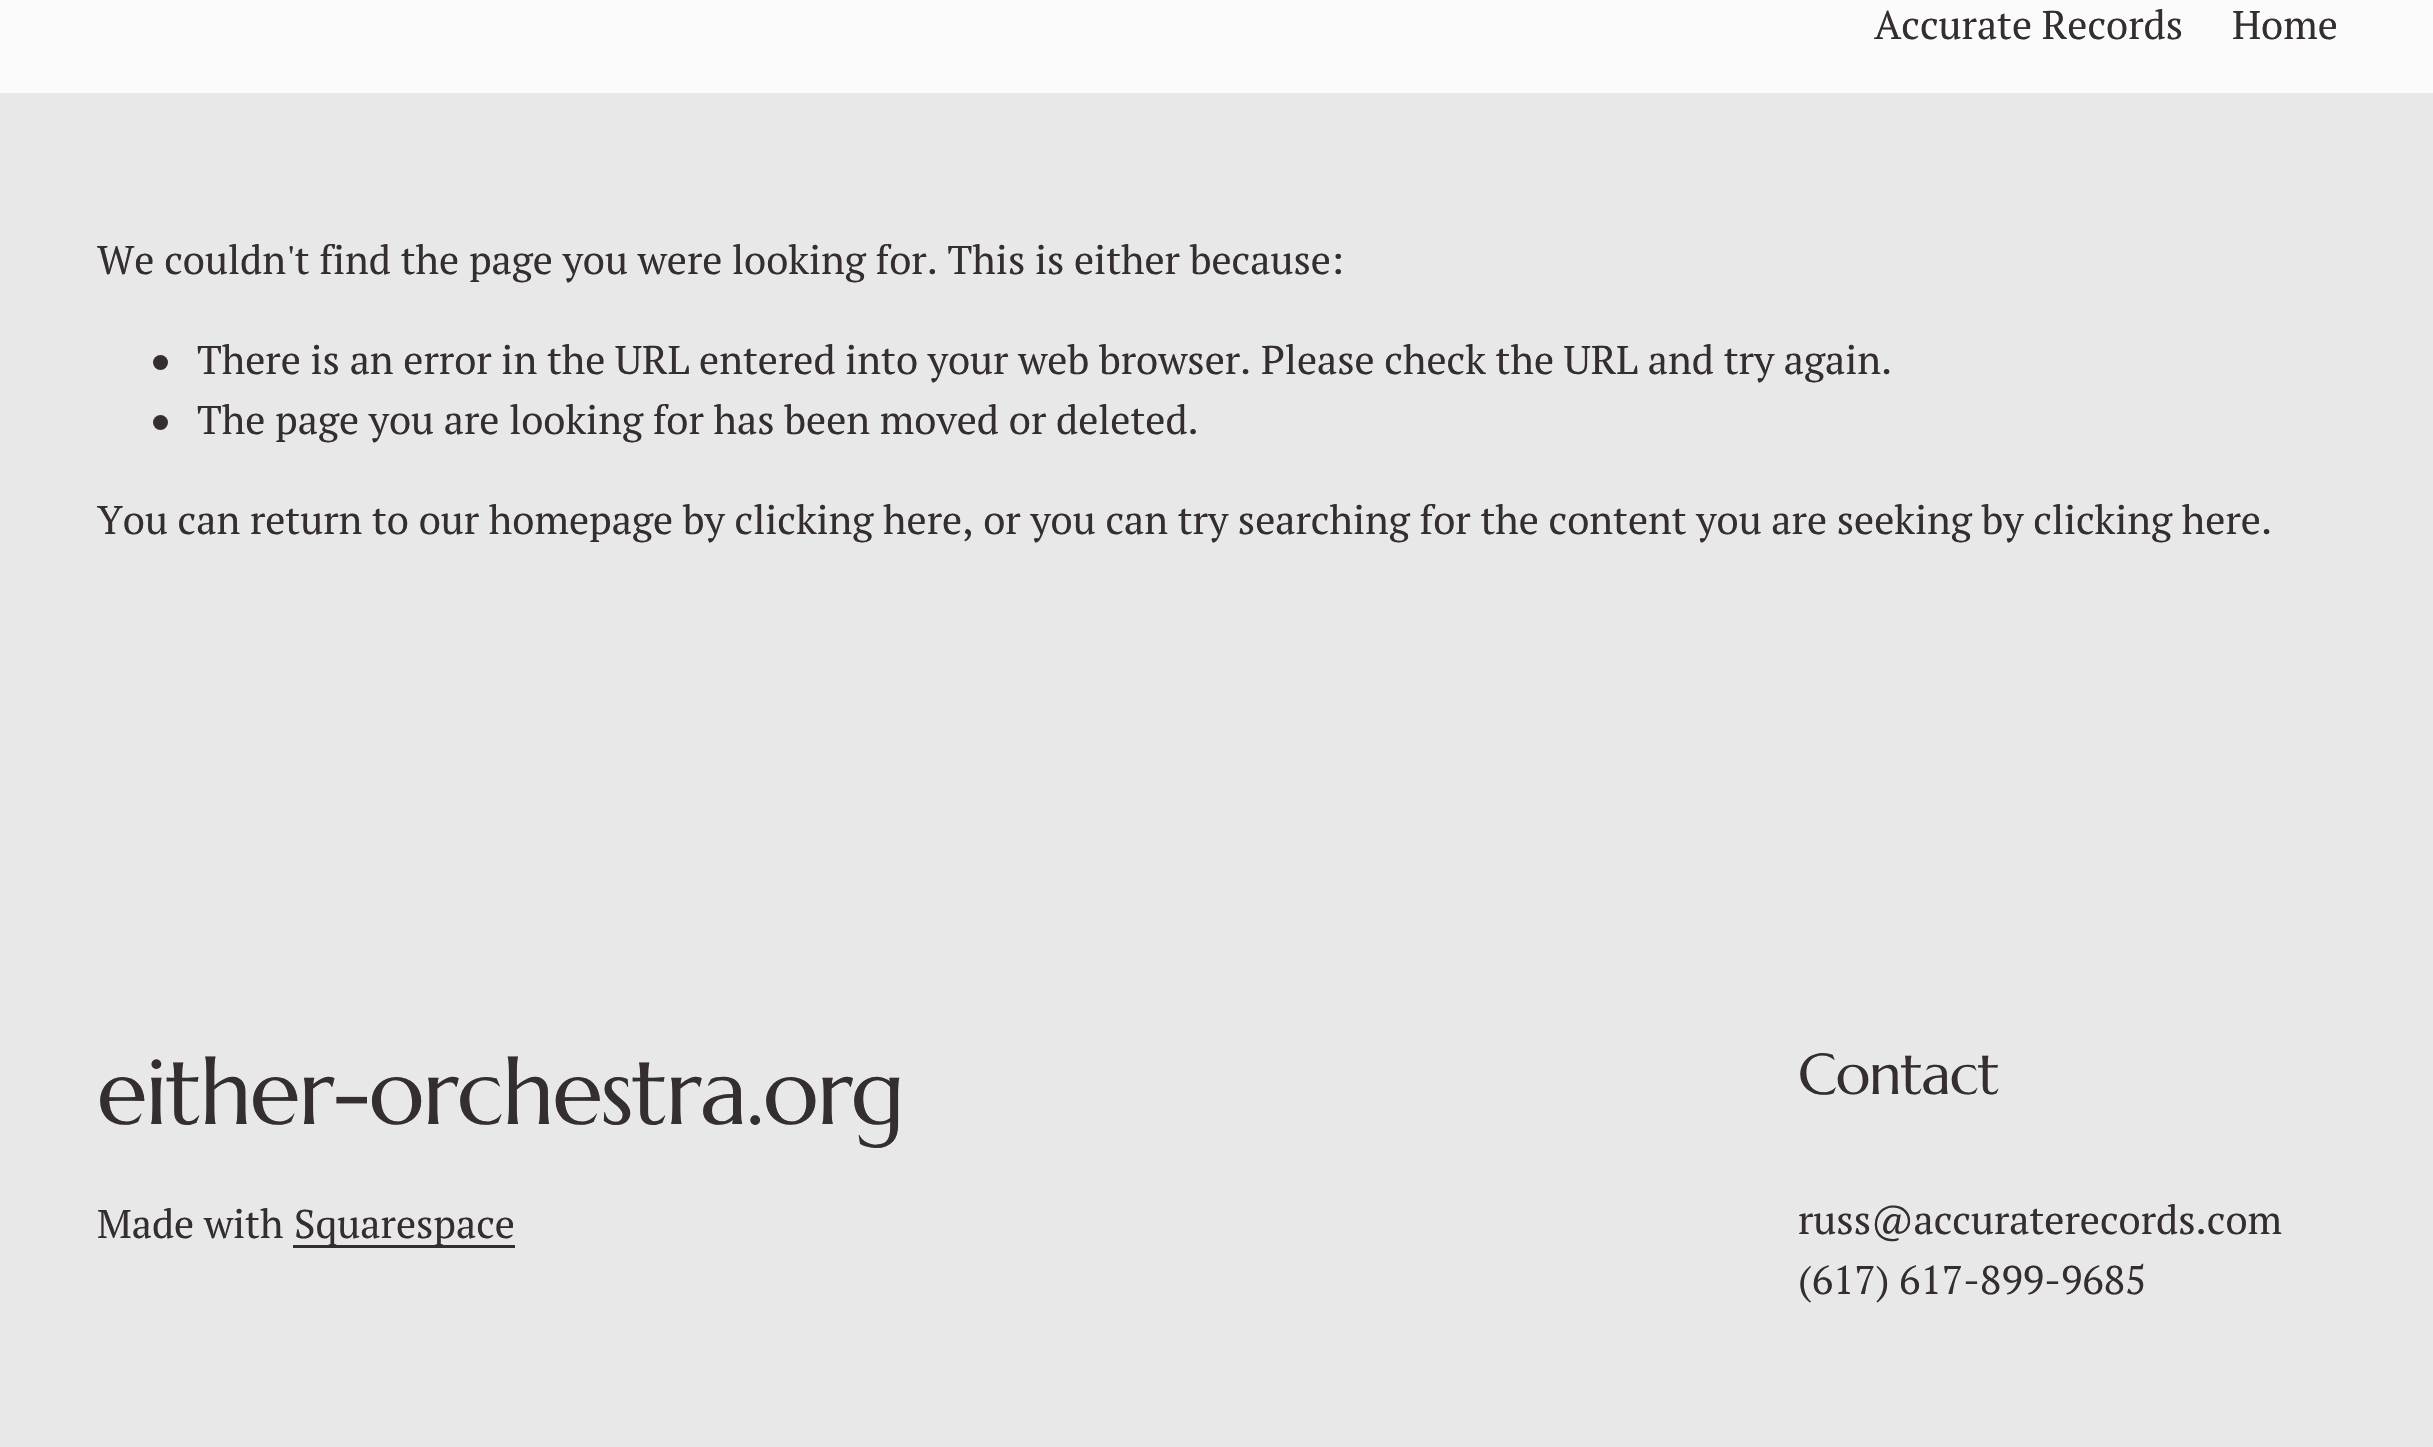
void draw(SkCanvas* canvas) {
	SkPaint fill;
	fill.setAntiAlias(true);
	auto makeFont = [&](const char* family, int weight, float size, bool italic = false) {
		SkFontStyle style(weight, SkFontStyle::kNormal_Width,
			italic ? SkFontStyle::kItalic_Slant : SkFontStyle::kUpright_Slant);
		SkFont result(fontMgr->matchFamilyStyle(family, style), size);
		result.setSubpixel(true);
		return result;
	};
	auto text = [&](const char* s, float x, float y, const SkFont& font) {
		canvas->drawString(s, x, y, font, fill);
	};
	auto spacedText = [&](const char* s, float x, float y, const SkFont& font, const SkPaint& ink, float letter, float word) {
		std::vector<SkGlyphID> glyphs(font.countText(s, strlen(s), SkTextEncoding::kUTF8));
		std::vector<float> xs(glyphs.size());
		font.textToGlyphs(s, strlen(s), SkTextEncoding::kUTF8, glyphs);
		font.getXPos(glyphs, xs, x);
		float extra = 0;
		for (size_t i = 0; i < glyphs.size(); i++) {
			xs[i] += extra;
			extra += letter + word * (glyphs[i] == font.unicharToGlyph(' '));
		}
		canvas->drawTextBlob(SkTextBlob::MakeFromPosHGlyphs(glyphs, xs, y, font), 0, 0, ink);
	};
	auto box = [&](float l, float t, float r, float b) {
		canvas->drawRect(SkRect::MakeLTRB(l, t, r, b), fill);
	};
	canvas->clear(0xFFE8E8E8);
	fill.setColor(0xFFFBFBFB);
	box(0, 0, 2433, 93);
	fill.setColor(0xFF342E2E);
	canvas->drawCircle(160.5f, 362.5f, 7.5f, fill);
	canvas->drawCircle(160.5f, 422.5f, 7.5f, fill);
	box(293, 1245, 515, 1248);
	auto font1 = makeFont("PT Serif", 400, 40);
	text("Accurate Records", 1874, 39, font1);
	text("Home", 2232, 39, font1);
	text("We couldn't find the page you were looking for. This is either because:", 97, 274, font1);
	text("There is an error in the URL entered into your web browser. Please check the URL and try again.", 197, 374, font1);
	text("The page you are looking for has been moved or deleted.", 197, 434, font1);
	text("You can return to our homepage by clicking here, or you can try searching for the content you are seeking by clicking here.", 97, 534, font1);
	auto font2 = makeFont("Marcellus", 400, 92.5f);
	spacedText("either-orchestra.org", 97, 1124, font2, fill, -1.85f, 0);
	auto font3 = makeFont("Marcellus", 400, 57.5f);
	spacedText("Contact", 1798, 1094, font3, fill, -1.25f, 0);
	text("russ@accuraterecords.com", 1798, 1234, font1);
	text("(617) 617-899-9685", 1798, 1294, font1);
	text("Made with", 97, 1238, font1);
	text("Squarespace", 294, 1238, font1);
}
